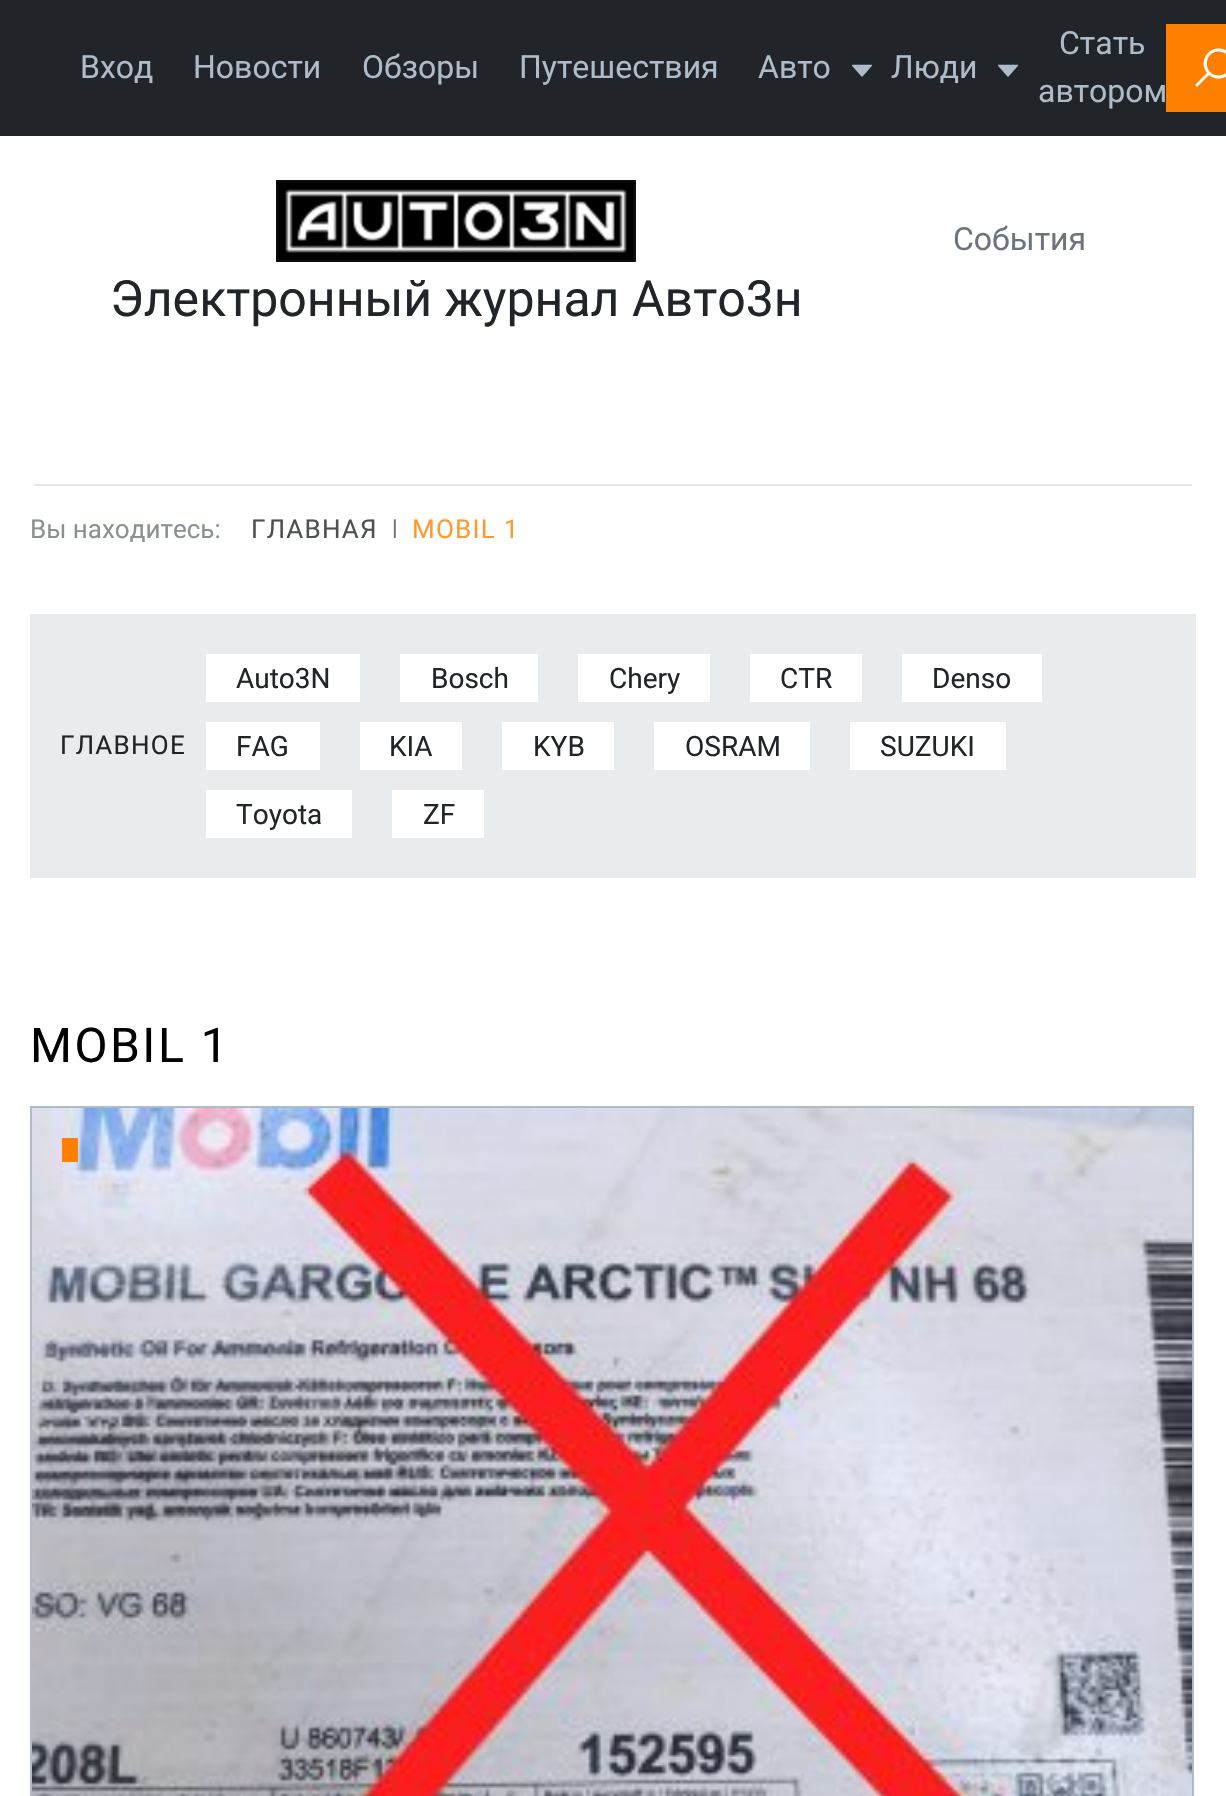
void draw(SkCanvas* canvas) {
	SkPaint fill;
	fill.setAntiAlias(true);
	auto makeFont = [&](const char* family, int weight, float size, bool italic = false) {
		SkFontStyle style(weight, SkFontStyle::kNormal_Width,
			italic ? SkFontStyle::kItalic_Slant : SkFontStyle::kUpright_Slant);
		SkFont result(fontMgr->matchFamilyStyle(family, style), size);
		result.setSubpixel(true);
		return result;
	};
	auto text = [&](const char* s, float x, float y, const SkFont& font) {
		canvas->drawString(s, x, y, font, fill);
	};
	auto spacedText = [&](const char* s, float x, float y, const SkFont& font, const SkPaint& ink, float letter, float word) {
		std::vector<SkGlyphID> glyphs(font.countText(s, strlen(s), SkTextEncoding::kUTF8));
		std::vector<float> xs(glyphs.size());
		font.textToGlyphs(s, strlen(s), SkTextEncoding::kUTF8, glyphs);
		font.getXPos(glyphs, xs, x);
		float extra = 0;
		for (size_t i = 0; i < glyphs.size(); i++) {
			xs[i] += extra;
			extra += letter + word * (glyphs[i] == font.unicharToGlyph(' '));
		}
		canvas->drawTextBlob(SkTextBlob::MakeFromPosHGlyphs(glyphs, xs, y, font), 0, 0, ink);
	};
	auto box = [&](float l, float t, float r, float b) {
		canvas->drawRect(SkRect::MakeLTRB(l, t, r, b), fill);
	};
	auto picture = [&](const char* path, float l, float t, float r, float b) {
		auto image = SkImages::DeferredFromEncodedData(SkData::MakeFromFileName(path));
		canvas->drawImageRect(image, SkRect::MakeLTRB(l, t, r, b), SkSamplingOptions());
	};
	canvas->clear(0xFFFFFFFF);
	fill.setColor(0xFF212529);
	box(0, 0, 1226, 136);
	picture("image0.png", 852, 64, 872, 77);
	picture("image0.png", 998, 64, 1018, 77);
	fill.setColor(0xFFFF7F00);
	box(1166, 24, 1226, 112);
	fill.setColor(0xFFFFFFFF);
	canvas->drawPath(SkPathBuilder().moveTo(1218.5f, 48.5f).cubicTo(1206, 48.5f, 1199, 63.5f, 1207, 73).lineTo(1195, 85).lineTo(1197, 87).lineTo(1209, 75).cubicTo(1223.5f, 87, 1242.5f, 66.5f, 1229, 53).cubicTo(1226.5f, 50, 1222.5f, 48.5f, 1218.5f, 48.5f).close().moveTo(1218.5f, 51.5f).cubicTo(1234, 51.5f, 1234, 75.5f, 1218.5f, 75.5f).cubicTo(1203, 75.5f, 1203, 51.5f, 1218.5f, 51.5f).close().detach(), fill);
	picture("image1.png", 276, 180, 636, 262);
	fill.setColor(0xFFE5E8EB);
	box(34, 484, 1192, 486);
	fill.setColor(0xFFE9ECEF);
	box(30, 614, 1196, 878);
	fill.setColor(0xFFFFFFFF);
	box(206, 654, 360, 702);
	box(400, 654, 538, 702);
	box(578, 654, 710, 702);
	box(750, 654, 862, 702);
	box(902, 654, 1042, 702);
	box(206, 722, 320, 770);
	box(360, 722, 462, 770);
	box(502, 722, 614, 770);
	box(654, 722, 810, 770);
	box(850, 722, 1006, 770);
	box(206, 790, 352, 838);
	box(392, 790, 484, 838);
	fill.setStyle(SkPaint::kStroke_Style);
	fill.setStrokeWidth(2);
	fill.setColor(0xFFAEBCC9);
	canvas->drawRect(SkRect::MakeLTRB(31, 1107, 1193, 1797), fill);
	picture("image2.png", 32, 1108, 1192, 1796);
	fill.setStyle(SkPaint::kFill_Style);
	fill.setColor(0xFFFF7F00);
	box(62, 1138, 78, 1162);
	auto font1 = makeFont("Roboto", 400, 32);
	fill.setColor(0xFFAEBCC9);
	text("Вход", 80, 78, font1);
	text("Новости", 193, 78, font1);
	text("Обзоры", 362, 78, font1);
	text("Путешествия", 519, 78, font1);
	text("Авто", 758, 78, font1);
	text("Люди", 891, 78, font1);
	text("Стать", 1059, 54, font1);
	text("автором", 1038, 102, font1);
	fill.setColor(0xFF6C757D);
	text("События", 953, 250, font1);
	auto font2 = makeFont("Roboto", 400, 50);
	fill.setColor(0xFF212529);
	text("Электронный журнал Авто3н", 110, 316, font2);
	auto font3 = makeFont("Roboto", 400, 26);
	fill.setColor(0xFF899197);
	text("Вы находитесь:", 30, 538, font3);
	fill.setColor(0xFF4D5154);
	spacedText("ГЛАВНАЯ", 251, 538, font3, fill, 1.25f, 0);
	auto font4 = makeFont("Roboto", 700, 22);
	fill.setColor(0xFF6C757D);
	text("|", 392, 535, font4);
	fill.setColor(0xFFFF9933);
	spacedText("MOBIL 1", 412, 538, font3, fill, 1.25f, 0);
	fill.setColor(0xFF212529);
	spacedText("ГЛАВНОЕ", 60, 754, font3, fill, 1.25f, 0);
	auto font5 = makeFont("Roboto", 400, 28);
	text("Auto3N", 236, 688, font5);
	text("Bosch", 431, 688, font5);
	text("Chery", 609, 688, font5);
	text("CTR", 780, 688, font5);
	text("Denso", 932, 688, font5);
	text("FAG", 236, 756, font5);
	text("KIA", 389, 756, font5);
	text("KYB", 533, 756, font5);
	text("OSRAM", 685, 756, font5);
	text("SUZUKI", 880, 756, font5);
	text("Toyota", 236, 824, font5);
	text("ZF", 423, 824, font5);
	auto font6 = makeFont("Roboto", 400, 48);
	fill.setColor(0xFF000000);
	spacedText("MOBIL 1", 30, 1062, font6, fill, 2.5f, 0);
}
